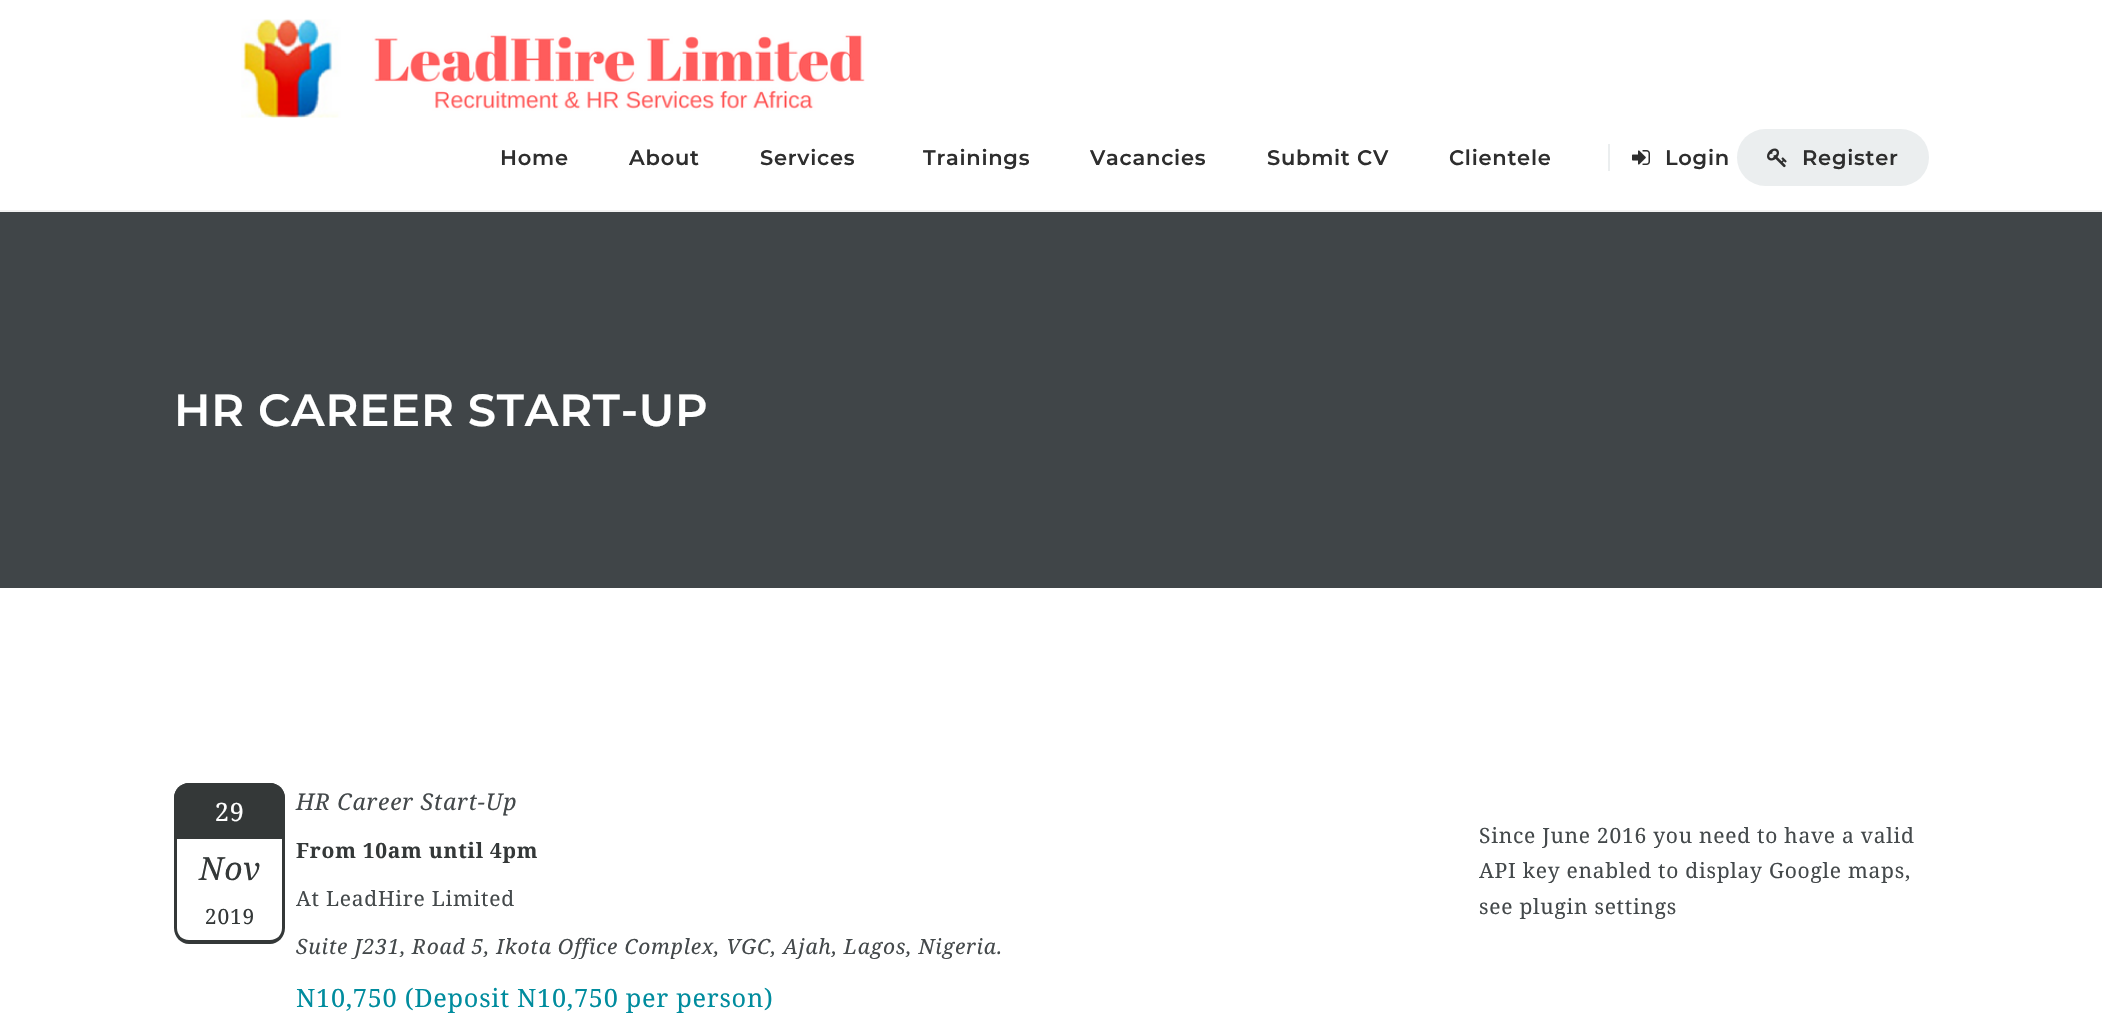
void draw(SkCanvas* canvas) {
	SkPaint fill;
	fill.setAntiAlias(true);
	auto makeFont = [&](const char* family, int weight, float size, bool italic = false) {
		SkFontStyle style(weight, SkFontStyle::kNormal_Width,
			italic ? SkFontStyle::kItalic_Slant : SkFontStyle::kUpright_Slant);
		SkFont result(fontMgr->matchFamilyStyle(family, style), size);
		result.setSubpixel(true);
		return result;
	};
	auto spacedText = [&](const char* s, float x, float y, const SkFont& font, const SkPaint& ink, float letter, float word) {
		std::vector<SkGlyphID> glyphs(font.countText(s, strlen(s), SkTextEncoding::kUTF8));
		std::vector<float> xs(glyphs.size());
		font.textToGlyphs(s, strlen(s), SkTextEncoding::kUTF8, glyphs);
		font.getXPos(glyphs, xs, x);
		float extra = 0;
		for (size_t i = 0; i < glyphs.size(); i++) {
			xs[i] += extra;
			extra += letter + word * (glyphs[i] == font.unicharToGlyph(' '));
		}
		canvas->drawTextBlob(SkTextBlob::MakeFromPosHGlyphs(glyphs, xs, y, font), 0, 0, ink);
	};
	auto box = [&](float l, float t, float r, float b) {
		canvas->drawRect(SkRect::MakeLTRB(l, t, r, b), fill);
	};
	auto roundBox = [&](float l, float t, float r, float b, float radius) {
		canvas->drawRoundRect(SkRect::MakeLTRB(l, t, r, b), radius, radius, fill);
	};
	auto picture = [&](const char* path, float l, float t, float r, float b) {
		auto image = SkImages::DeferredFromEncodedData(SkData::MakeFromFileName(path));
		canvas->drawImageRect(image, SkRect::MakeLTRB(l, t, r, b), SkSamplingOptions());
	};
	canvas->clear(0xFFFFFFFF);
	fill.setColor(0xFFF2F2F2);
	box(0, 210, 2102, 212);
	picture("image0.png", 241, 19, 865, 118);
	fill.setColor(0xFFEBEEEF);
	box(1608, 144, 1610, 171);
	picture("image1.png", 1632, 150, 1650, 165);
	roundBox(1737, 129, 1929, 186, 28.5f);
	picture("image2.png", 1767, 148, 1787, 168);
	fill.setColor(0xFF404548);
	box(0, 212, 2102, 588);
	fill.setColor(0xFF343838);
	canvas->drawPath(SkPathBuilder().moveTo(189, 783).lineTo(270, 783).cubicTo(278.5f, 783, 285, 789.5f, 285, 798).lineTo(285, 839).lineTo(174, 839).lineTo(174, 798).cubicTo(174, 789.5f, 180.5f, 783, 189, 783).close().detach(), fill);
	canvas->drawPath(SkPathBuilder(SkPathFillType::kEvenOdd).moveTo(189, 783).lineTo(270, 783).cubicTo(278, 783, 285, 790, 285, 798).lineTo(285, 838).lineTo(174, 838).lineTo(174, 798).cubicTo(174, 790, 181, 783, 189, 783).close().moveTo(189, 786).lineTo(270, 786).cubicTo(277, 786, 282, 791, 282, 798).lineTo(282, 838).lineTo(177, 838).lineTo(177, 798).cubicTo(177, 791, 182, 786, 189, 786).close().detach(), fill);
	canvas->drawPath(SkPathBuilder(SkPathFillType::kEvenOdd).moveTo(174, 838).lineTo(285, 838).lineTo(285, 928).cubicTo(285, 937, 278, 944, 270, 944).lineTo(189, 944).cubicTo(181, 944, 174, 937, 174, 928).close().moveTo(177, 838).lineTo(282, 838).lineTo(282, 928).cubicTo(282, 935, 277, 940, 270, 940).lineTo(189, 940).cubicTo(182, 940, 177, 935, 177, 928).close().detach(), fill);
	auto font1 = makeFont("Montserrat", 600, 21);
	fill.setColor(0xFF2E2E2E);
	spacedText("Home", 500, 165, font1, fill, 0.75f, 0);
	spacedText("About", 629, 165, font1, fill, 0.75f, 0);
	spacedText("Services", 760, 165, font1, fill, 0.75f, 0);
	spacedText("Trainings", 923, 165, font1, fill, 0.75f, 0);
	spacedText("Vacancies", 1090, 165, font1, fill, 0.75f, 0);
	spacedText("Submit CV", 1267, 165, font1, fill, 0.75f, 0);
	spacedText("Clientele", 1449, 165, font1, fill, 0.75f, 0);
	spacedText("Login", 1665, 165, font1, fill, 0.75f, 0);
	spacedText("Register", 1802, 165, font1, fill, 0.75f, 0);
	auto font2 = makeFont("Montserrat", 600, 45);
	fill.setColor(0xFFFFFFFF);
	spacedText("HR CAREER START-UP", 174, 426, font2, fill, 0.75f, 0);
	auto font3 = makeFont("Droid Serif", 400, 25.25f);
	spacedText("29", 215, 821, font3, fill, 0.75f, 0);
	auto font4 = makeFont("Droid Serif", 400, 32, true);
	fill.setColor(0xFF343838);
	spacedText("Nov", 199, 880, font4, fill, 0.75f, 0);
	auto font5 = makeFont("Droid Serif", 400, 21);
	spacedText("2019", 205, 924, font5, fill, 0.75f, 0);
	auto font6 = makeFont("Droid Serif", 400, 23, true);
	fill.setColor(0xFF44494B);
	spacedText("HR Career Start-Up", 296, 810, font6, fill, 0.75f, 0);
	auto font7 = makeFont("Droid Serif", 700, 21);
	fill.setColor(0xFF343838);
	spacedText("From 10am until 4pm", 296, 858, font7, fill, 0.75f, 0);
	fill.setColor(0xFF44494B);
	spacedText("Since June 2016 you need to have a valid", 1479, 843, font5, fill, 0.75f, 0);
	spacedText("API key enabled to display Google maps,", 1479, 878, font5, fill, 0.75f, 0);
	spacedText("see plugin settings", 1479, 914, font5, fill, 0.75f, 0);
	spacedText("At LeadHire Limited", 296, 906, font5, fill, 0.75f, 0);
	auto font8 = makeFont("Droid Serif", 400, 21, true);
	spacedText("Suite J231, Road 5, Ikota Office Complex, VGC, Ajah, Lagos, Nigeria.", 296, 954, font8, fill, 0.75f, 0);
	fill.setColor(0xFF008C9E);
	spacedText("N10,750 (Deposit N10,750 per person)", 296, 1007, font3, fill, 0.75f, 0);
}
